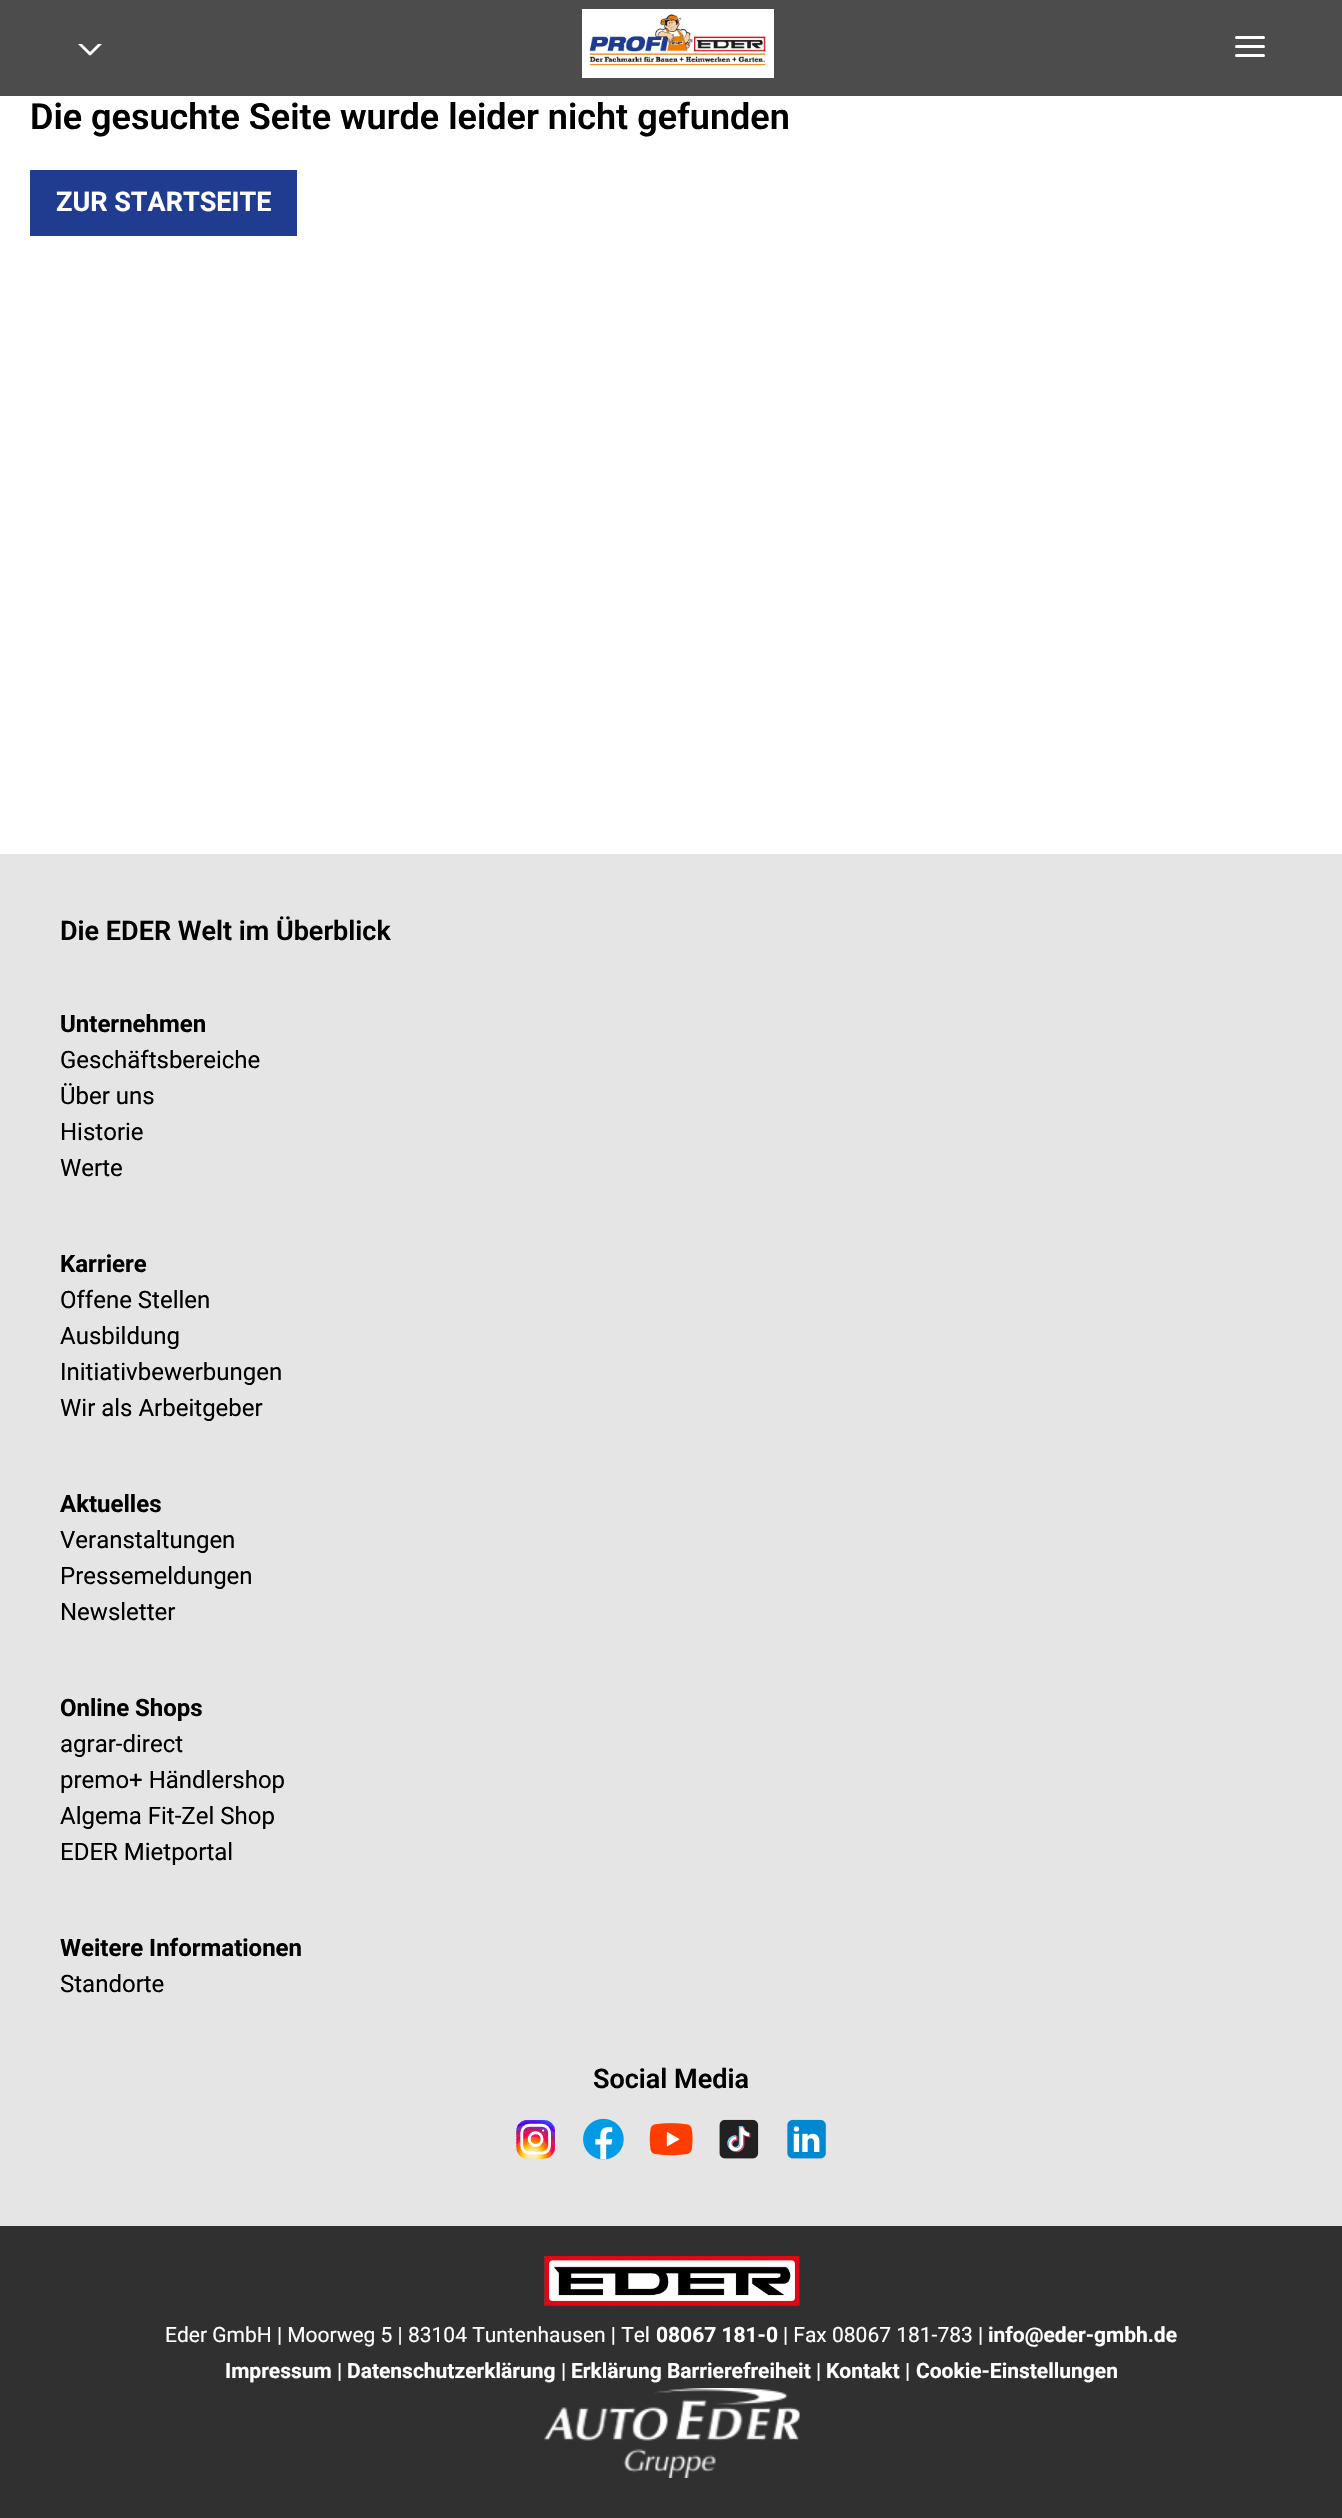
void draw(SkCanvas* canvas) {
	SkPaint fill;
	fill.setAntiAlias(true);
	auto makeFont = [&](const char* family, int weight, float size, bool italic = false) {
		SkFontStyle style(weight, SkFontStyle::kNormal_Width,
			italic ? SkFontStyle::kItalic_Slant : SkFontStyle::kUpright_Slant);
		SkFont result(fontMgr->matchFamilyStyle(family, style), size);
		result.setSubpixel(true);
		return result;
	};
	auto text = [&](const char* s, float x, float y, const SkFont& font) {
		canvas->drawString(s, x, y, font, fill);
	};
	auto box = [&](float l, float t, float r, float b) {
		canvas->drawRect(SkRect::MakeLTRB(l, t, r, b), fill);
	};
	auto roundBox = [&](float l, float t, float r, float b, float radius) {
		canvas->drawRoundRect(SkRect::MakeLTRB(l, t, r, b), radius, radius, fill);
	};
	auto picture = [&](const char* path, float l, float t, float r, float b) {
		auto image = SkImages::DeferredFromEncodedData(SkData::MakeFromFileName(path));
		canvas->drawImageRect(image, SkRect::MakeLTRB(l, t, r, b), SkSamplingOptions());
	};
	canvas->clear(0xFFFFFFFF);
	fill.setColor(0xFF4C4C4C);
	box(0, 0, 1342, 96);
	canvas->save();
	canvas->clipRect(SkRect::MakeLTRB(78, 44, 123, 68));
	fill.setColor(0xFFFFFFFF);
	canvas->drawPath(SkPathBuilder().moveTo(102.5f, 43.5f).lineTo(90.5f, 55.5f).lineTo(88.5f, 53.5f).lineTo(100.5f, 41.5f).close().detach(), fill);
	canvas->drawPath(SkPathBuilder().moveTo(91.5f, 53.5f).lineTo(89.5f, 55.5f).lineTo(77.5f, 43.5f).lineTo(79.5f, 41.5f).close().detach(), fill);
	canvas->restore();
	box(582, 9, 774, 78);
	picture("image0.png", 589, 14, 766, 66);
	roundBox(1235, 45, 1265, 48, 1.5f);
	roundBox(1235, 36, 1265, 39, 1.5f);
	roundBox(1235, 54, 1265, 57, 1.5f);
	fill.setColor(0xFF1F3C90);
	box(30, 170, 297, 236);
	fill.setColor(0xFFE5E5E5);
	box(0, 854, 1342, 2226);
	picture("image1.png", 516, 2120, 555, 2159);
	picture("image2.png", 583, 2118, 624, 2160);
	picture("image3.png", 649, 2123, 693, 2156);
	picture("image4.png", 719, 2119, 759, 2159);
	picture("image5.png", 787, 2119, 826, 2159);
	fill.setColor(0xFF303030);
	box(0, 2226, 1342, 2518);
	picture("image6.png", 544, 2256, 800, 2306);
	picture("image7.png", 544, 2388, 800, 2478);
	auto font1 = makeFont("Roboto", 600, 36);
	fill.setColor(0xFF000000);
	text("Die gesuchte Seite wurde leider nicht gefunden", 30, 129, font1);
	auto font2 = makeFont("Roboto", 700, 27);
	fill.setColor(0xFFFFFFFF);
	text("ZUR STARTSEITE", 56, 211, font2);
	auto font3 = makeFont("Roboto", 600, 27);
	fill.setColor(0xFF000000);
	text("Die EDER Welt im Überblick", 60, 940, font3);
	auto font4 = makeFont("Roboto", 700, 24);
	text("Unternehmen", 60, 1032, font4);
	auto font5 = makeFont("Roboto", 400, 24);
	text("Geschäftsbereiche", 60, 1068, font5);
	text("Über uns", 60, 1104, font5);
	text("Historie", 60, 1140, font5);
	text("Werte", 60, 1176, font5);
	text("Karriere", 60, 1272, font4);
	text("Offene Stellen", 60, 1308, font5);
	text("Ausbildung", 60, 1344, font5);
	text("Initiativbewerbungen", 60, 1380, font5);
	text("Wir als Arbeitgeber", 60, 1416, font5);
	text("Aktuelles", 60, 1512, font4);
	text("Veranstaltungen", 60, 1548, font5);
	text("Pressemeldungen", 60, 1584, font5);
	text("Newsletter", 60, 1620, font5);
	text("Online Shops", 60, 1716, font4);
	text("agrar-direct", 60, 1752, font5);
	text("premo+ Händlershop", 60, 1788, font5);
	text("Algema Fit-Zel Shop", 60, 1824, font5);
	text("EDER Mietportal", 60, 1860, font5);
	text("Weitere Informationen", 60, 1956, font4);
	text("Standorte", 60, 1992, font5);
	text("Social Media", 593, 2088, font3);
	auto font6 = makeFont("Roboto", 400, 21);
	fill.setColor(0xFFFFFFFF);
	text("Eder GmbH | Moorweg 5 | 83104 Tuntenhausen | Tel", 165, 2342, font6);
	auto font7 = makeFont("Roboto", 700, 21);
	text("08067 181-0", 656, 2342, font7);
	text("| Fax 08067 181-783 |", 783, 2342, font6);
	text("info@eder-gmbh.de", 988, 2342, font7);
	text("Impressum", 225, 2378, font7);
	text("|", 337, 2378, font6);
	text("Datenschutzerklärung", 347, 2378, font7);
	text("|", 561, 2378, font6);
	text("Erklärung Barrierefreiheit", 571, 2378, font7);
	text("|", 816, 2378, font6);
	text("Kontakt", 826, 2378, font7);
	text("|", 905, 2378, font6);
	text("Cookie-Einstellungen", 916, 2378, font7);
}
